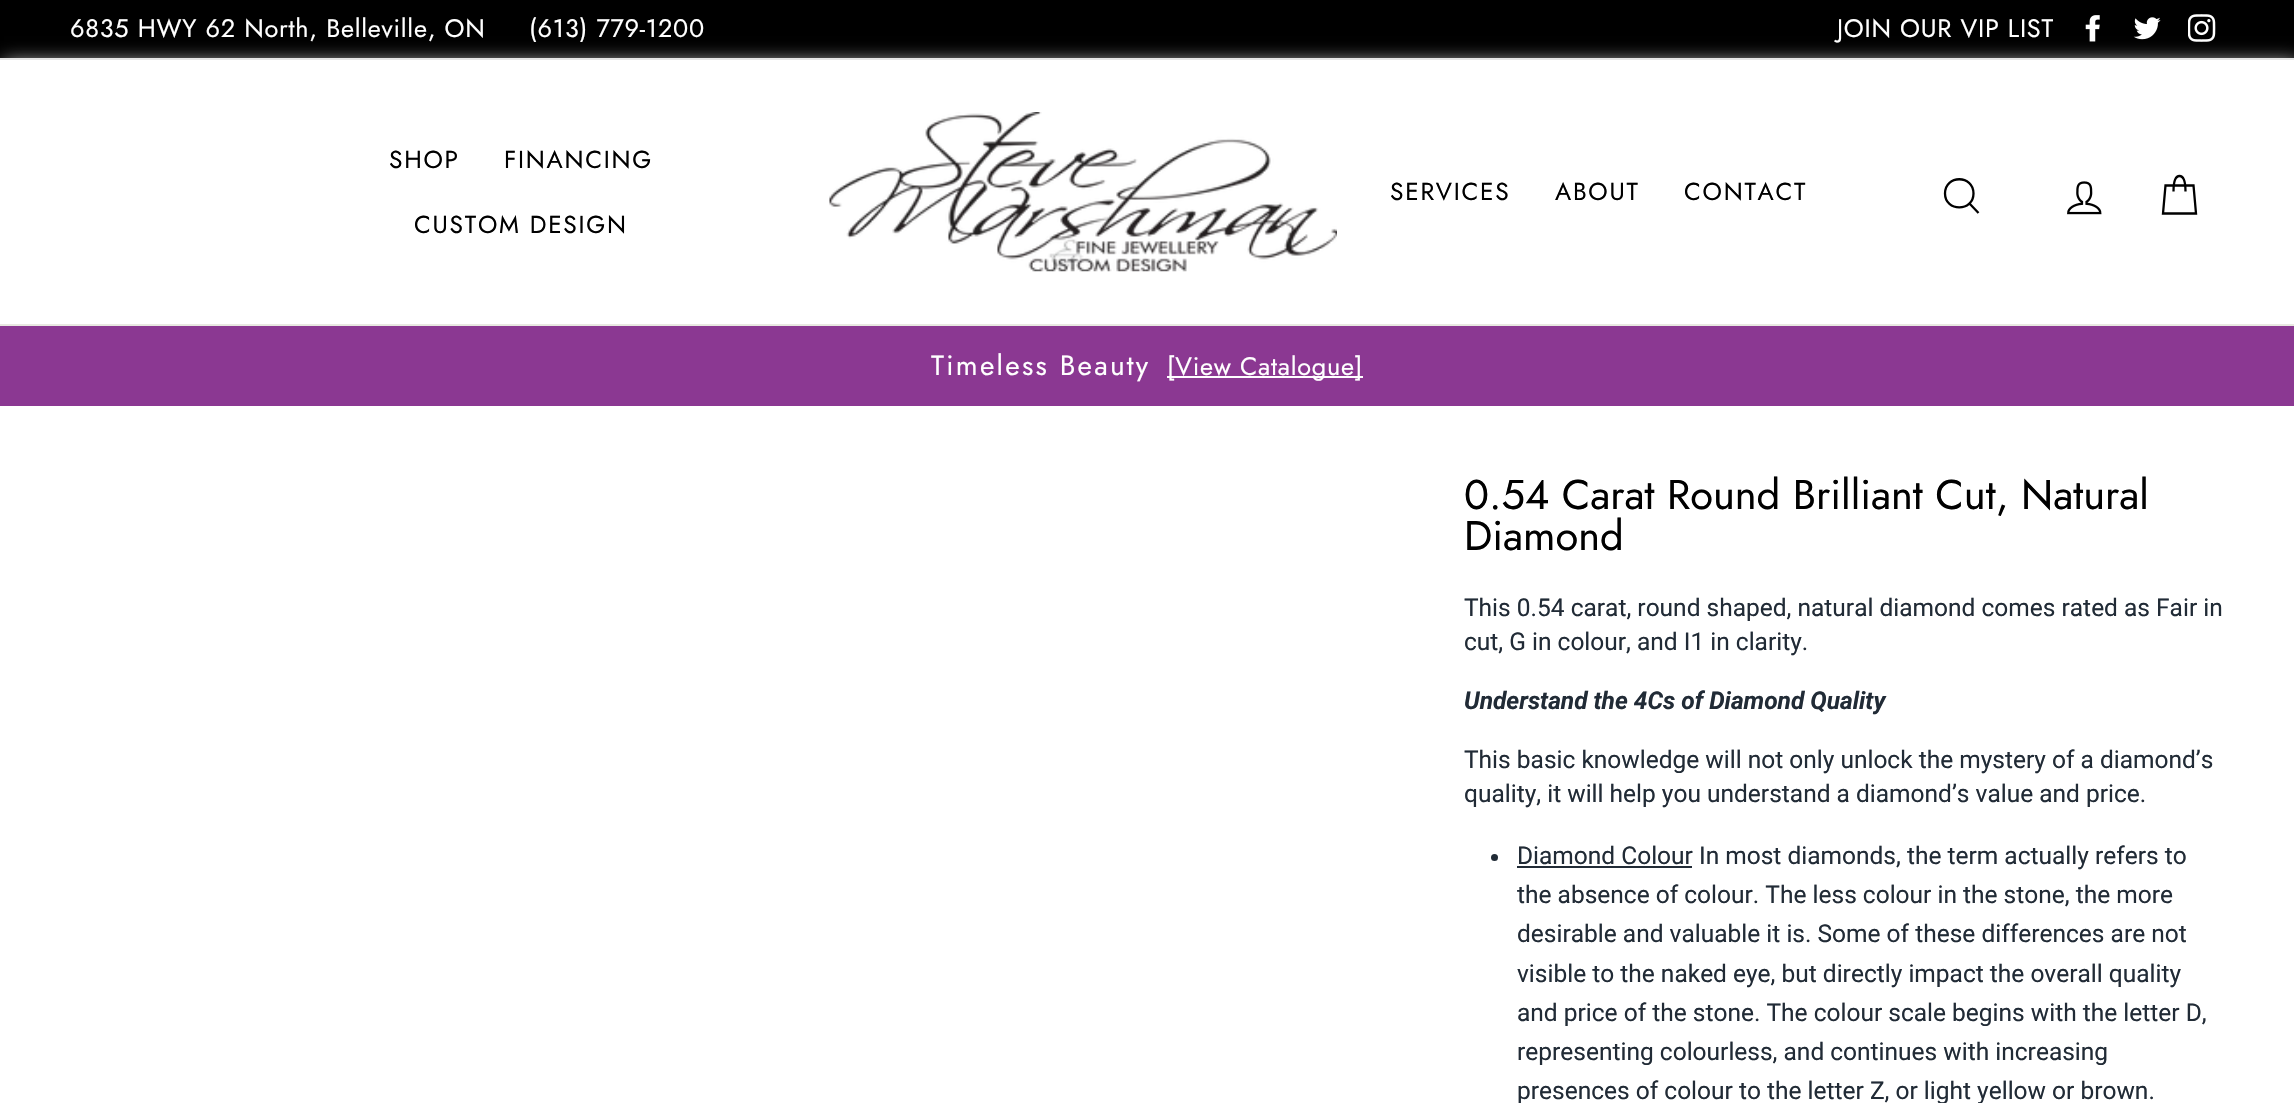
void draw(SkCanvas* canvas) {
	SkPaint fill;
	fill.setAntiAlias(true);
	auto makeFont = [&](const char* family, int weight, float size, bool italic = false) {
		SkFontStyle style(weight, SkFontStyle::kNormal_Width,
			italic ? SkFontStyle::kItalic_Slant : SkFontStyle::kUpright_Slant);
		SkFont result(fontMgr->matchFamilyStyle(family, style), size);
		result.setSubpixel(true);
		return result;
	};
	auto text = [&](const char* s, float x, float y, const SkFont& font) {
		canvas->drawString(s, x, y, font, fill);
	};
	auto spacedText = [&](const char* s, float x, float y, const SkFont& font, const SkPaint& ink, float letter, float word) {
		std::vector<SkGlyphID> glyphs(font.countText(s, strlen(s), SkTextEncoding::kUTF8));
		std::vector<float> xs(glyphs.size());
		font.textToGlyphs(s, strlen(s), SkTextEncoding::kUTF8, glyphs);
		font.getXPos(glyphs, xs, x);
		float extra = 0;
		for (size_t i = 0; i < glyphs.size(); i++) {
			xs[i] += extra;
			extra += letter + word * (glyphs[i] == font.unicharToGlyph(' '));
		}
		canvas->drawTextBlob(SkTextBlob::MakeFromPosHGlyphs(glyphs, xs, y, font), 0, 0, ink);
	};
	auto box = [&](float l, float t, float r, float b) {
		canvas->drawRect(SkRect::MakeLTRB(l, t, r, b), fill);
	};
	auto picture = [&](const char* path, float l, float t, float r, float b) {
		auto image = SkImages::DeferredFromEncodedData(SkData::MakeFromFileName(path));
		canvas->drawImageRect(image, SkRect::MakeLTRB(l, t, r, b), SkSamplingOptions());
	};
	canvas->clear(0xFFFFFFFF);
	fill.setColor(0xFF000000);
	box(0, 0, 2294, 58);
	picture("image0.png", 2085, 15, 2100, 42);
	picture("image1.png", 2133, 17, 2161, 40);
	picture("image2.png", 2188, 14, 2216, 42);
	fill.setColor(0xFFEFEFEF);
	fill.setMaskFilter(SkMaskFilter::MakeBlur(kNormal_SkBlurStyle, 9));
	canvas->drawRect(SkRect::MakeLTRB(4, 63, 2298, 331), fill);
	fill.setMaskFilter(nullptr);
	fill.setColor(0xFFFFFFFF);
	box(0, 60, 2294, 324);
	fill.setColor(0xFFE6E6E6);
	box(0, 58, 2294, 60);
	fill.setColor(0xFFE8E8E1);
	box(0, 324, 2294, 326);
	picture("image3.png", 829, 112, 1337, 272);
	fill.setStyle(SkPaint::kStroke_Style);
	fill.setStrokeWidth(2.3f);
	fill.setColor(0xFF000000);
	canvas->drawPath(SkPathBuilder().moveTo(1973.5f, 193.5f).cubicTo(1973.5f, 212, 1945, 212, 1945, 193.5f).cubicTo(1945, 174.5f, 1973.5f, 174.5f, 1973.5f, 193.5f).close().moveTo(1978.5f, 213).lineTo(1969.5f, 203.5f).detach(), fill);
	picture("image4.png", 2067, 181, 2102, 215);
	canvas->drawPath(SkPathBuilder().moveTo(2173.5f, 191.5f).cubicTo(2173.5f, 179.5f, 2176, 176, 2179.5f, 176).cubicTo(2183, 176, 2185.5f, 179.5f, 2185.5f, 191.5f).moveTo(2165.5f, 185.5f).lineTo(2193.5f, 185.5f).lineTo(2196, 213.5f).lineTo(2163, 213.5f).close().detach(), fill);
	fill.setStyle(SkPaint::kFill_Style);
	fill.setColor(0xFF8B3892);
	box(0, 326, 2294, 406);
	fill.setColor(0xFFFFFFFF);
	box(1167, 376, 1363, 378);
	fill.setColor(0xFF212B36);
	canvas->drawCircle(1494.5f, 857.5f, 3.5f, fill);
	box(1517, 866, 1692, 868);
	auto font1 = makeFont("Jost", 400, 25.25f);
	fill.setColor(0xFFFFFFFF);
	spacedText("6835 HWY 62 North, Belleville, ON", 70, 37, font1, fill, 0.75f, 0);
	spacedText("(613) 779-1200", 529, 37, font1, fill, 0.75f, 0);
	spacedText("JOIN OUR VIP LIST", 1837, 37, font1, fill, 0.75f, 0);
	auto font2 = makeFont("Jost", 400, 24.5f);
	fill.setColor(0xFF000000);
	spacedText("SHOP", 389, 168, font2, fill, 1.75f, 0);
	spacedText("FINANCING", 504, 168, font2, fill, 1.75f, 0);
	spacedText("CUSTOM DESIGN", 414, 233, font2, fill, 1.75f, 0);
	spacedText("SERVICES", 1390, 200, font2, fill, 1.75f, 0);
	spacedText("ABOUT", 1555, 200, font2, fill, 1.75f, 0);
	spacedText("CONTACT", 1684, 200, font2, fill, 1.75f, 0);
	auto font3 = makeFont("Jost", 400, 28);
	fill.setColor(0xFFFFFFFF);
	spacedText("Timeless Beauty", 931, 375, font3, fill, 2.25f, 0);
	spacedText("[View Catalogue]", 1167, 375, font1, fill, 0.75f, 0);
	auto font4 = makeFont("Jost", 400, 41.6f);
	fill.setColor(0xFF000000);
	text("0.54 Carat Round Brilliant Cut, Natural", 1464, 509, font4);
	text("Diamond", 1464, 550, font4);
	auto font5 = makeFont("Roboto", 400, 24.5f);
	fill.setColor(0xFF212B36);
	text("This 0.54 carat, round shaped, natural diamond comes rated as Fair in", 1464, 616, font5);
	text("cut, G in colour, and I1 in clarity.", 1464, 650, font5);
	auto font6 = makeFont("Roboto", 700, 24.5f, true);
	text("Understand the 4Cs of Diamond Quality", 1464, 709, font6);
	text("This basic knowledge will not only unlock the mystery of a diamond’s", 1464, 768, font5);
	text("quality, it will help you understand a diamond’s value and price.", 1464, 802, font5);
	text("Diamond Colour In most diamonds, the term actually refers to", 1517, 864, font5);
	text("the absence of colour. The less colour in the stone, the more", 1517, 903, font5);
	text("desirable and valuable it is. Some of these differences are not", 1517, 942, font5);
	text("visible to the naked eye, but directly impact the overall quality", 1517, 982, font5);
	text("and price of the stone. The colour scale begins with the letter D,", 1517, 1021, font5);
	text("representing colourless, and continues with increasing", 1517, 1060, font5);
	text("presences of colour to the letter Z, or light yellow or brown.", 1517, 1099, font5);
}
